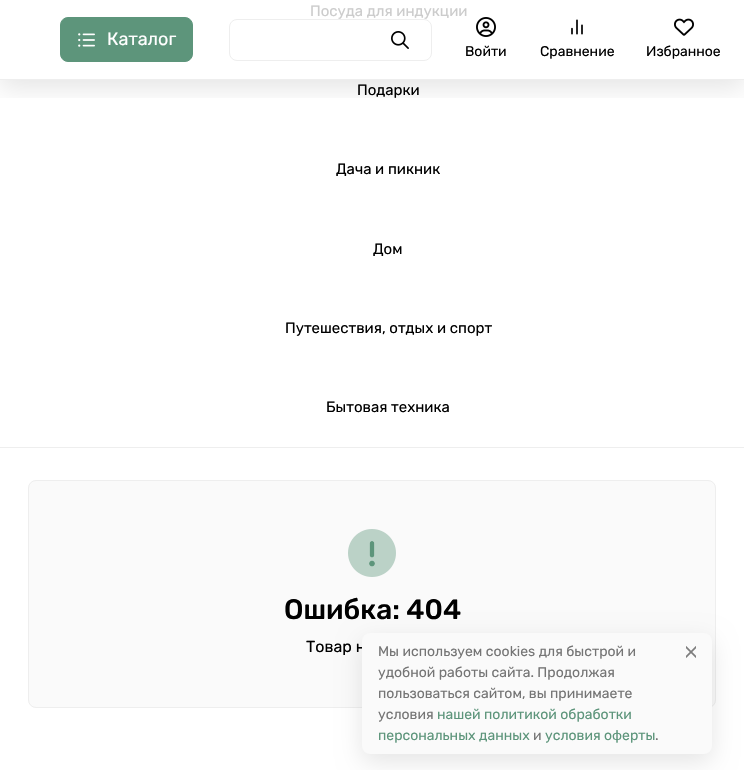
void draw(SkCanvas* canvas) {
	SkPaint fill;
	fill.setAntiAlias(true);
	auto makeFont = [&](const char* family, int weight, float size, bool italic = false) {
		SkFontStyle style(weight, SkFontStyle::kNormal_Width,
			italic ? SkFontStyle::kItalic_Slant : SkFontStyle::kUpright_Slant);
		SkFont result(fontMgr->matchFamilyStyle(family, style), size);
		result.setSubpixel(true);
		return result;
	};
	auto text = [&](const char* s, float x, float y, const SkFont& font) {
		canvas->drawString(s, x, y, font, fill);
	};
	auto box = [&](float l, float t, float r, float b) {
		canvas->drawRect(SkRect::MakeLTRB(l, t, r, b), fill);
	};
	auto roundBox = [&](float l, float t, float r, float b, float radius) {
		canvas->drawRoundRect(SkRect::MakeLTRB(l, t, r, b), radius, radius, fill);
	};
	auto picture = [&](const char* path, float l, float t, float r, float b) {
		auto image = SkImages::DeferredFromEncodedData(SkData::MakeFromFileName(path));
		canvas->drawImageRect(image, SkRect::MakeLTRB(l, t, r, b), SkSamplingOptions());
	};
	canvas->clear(0xFFFFFFFF);
	fill.setColor(0xFFEEEEEE);
	box(0, 447, 744, 448);
	canvas->save();
	canvas->clipRect(SkRect::MakeLTRB(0, 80, 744, 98));
	fill.setColor(0x1A000000);
	fill.setMaskFilter(SkMaskFilter::MakeBlur(kNormal_SkBlurStyle, 12));
	canvas->drawRect(SkRect::MakeLTRB(0, 8, 744, 88), fill);
	fill.setMaskFilter(nullptr);
	canvas->restore();
	fill.setColor(0xFFEEEEEE);
	box(0, 79, 744, 80);
	fill.setColor(0xFF5D957B);
	canvas->drawRoundRect(SkRect::MakeLTRB(60.5f, 17.5f, 192.5f, 61.5f), 7.5f, 7.5f, fill);
	fill.setStyle(SkPaint::kStroke_Style);
	fill.setStrokeWidth(1);
	canvas->drawRoundRect(SkRect::MakeLTRB(60.5f, 17.5f, 192.5f, 61.5f), 7.5f, 7.5f, fill);
	picture("image0.png", 78, 33, 95, 47);
	fill.setColor(0xFFEEEEEE);
	canvas->drawRoundRect(SkRect::MakeLTRB(229.5f, 19.5f, 431.5f, 60.5f), 7.5f, 7.5f, fill);
	picture("image1.png", 391, 31, 409, 49);
	picture("image2.png", 476, 17, 496, 37);
	picture("image3.png", 571, 19, 583, 35);
	picture("image4.png", 674, 18, 694, 36);
	fill.setStyle(SkPaint::kFill_Style);
	fill.setColor(0xFFFAFAFA);
	canvas->drawRoundRect(SkRect::MakeLTRB(28.5f, 480.5f, 715.5f, 707.5f), 7.5f, 7.5f, fill);
	fill.setStyle(SkPaint::kStroke_Style);
	fill.setColor(0xFFEEEEEE);
	canvas->drawRoundRect(SkRect::MakeLTRB(28.5f, 480.5f, 715.5f, 707.5f), 7.5f, 7.5f, fill);
	picture("image5.png", 348, 529, 396, 577);
	fill.setStyle(SkPaint::kFill_Style);
	fill.setColor(0x1A000000);
	fill.setMaskFilter(SkMaskFilter::MakeBlur(kNormal_SkBlurStyle, 12));
	canvas->drawRoundRect(SkRect::MakeLTRB(362, 641, 712, 762), 8, 8, fill);
	fill.setMaskFilter(nullptr);
	auto font1 = makeFont("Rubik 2", 300, 15);
	fill.setColor(0xFFCCCCCC);
	text("Посуда для индукции", 310, 16, font1);
	fill.setColor(0xFF000000);
	text("Подарки", 357, 95, font1);
	text("Дача и пикник", 336, 174, font1);
	text("Дом", 373, 254, font1);
	text("Путешествия, отдых и спорт", 285, 333, font1);
	text("Бытовая техника", 326, 412, font1);
	auto font2 = makeFont("Rubik 2", 300, 18);
	fill.setColor(0xFFFFFFFF);
	text("Каталог", 107, 45, font2);
	auto font3 = makeFont("Rubik 2", 300, 14);
	fill.setColor(0xFF000000);
	text("Войти", 465, 56, font3);
	text("Сравнение", 540, 56, font3);
	text("Избранное", 646, 56, font3);
	auto font4 = makeFont("Rubik", 300, 28);
	text("Ошибка: 404", 284, 619, font4);
	auto font5 = makeFont("Rubik 2", 300, 16);
	text("Товар н", 306, 652, font5);
	fill.setColor(0xFFFAFAFA);
	roundBox(362, 633, 712, 754, 8);
	fill.setColor(0xFF757575);
	text("Мы используем cookies для быстрой и", 378, 656, font3);
	text("удобной работы сайта. Продолжая", 378, 677, font3);
	text("пользоваться сайтом, вы принимаете", 378, 698, font3);
	text("условия", 378, 719, font3);
	fill.setColor(0xFF5D957B);
	text("нашей политикой обработки", 437, 719, font3);
	text("персональных данных", 378, 740, font3);
	fill.setColor(0xFF757575);
	text("и", 533, 740, font3);
	fill.setColor(0xFF5D957B);
	text("условия оферты", 545, 740, font3);
	fill.setColor(0xFF757575);
	text(".", 655, 740, font3);
	picture("image6.png", 686, 646, 696, 658);
}
